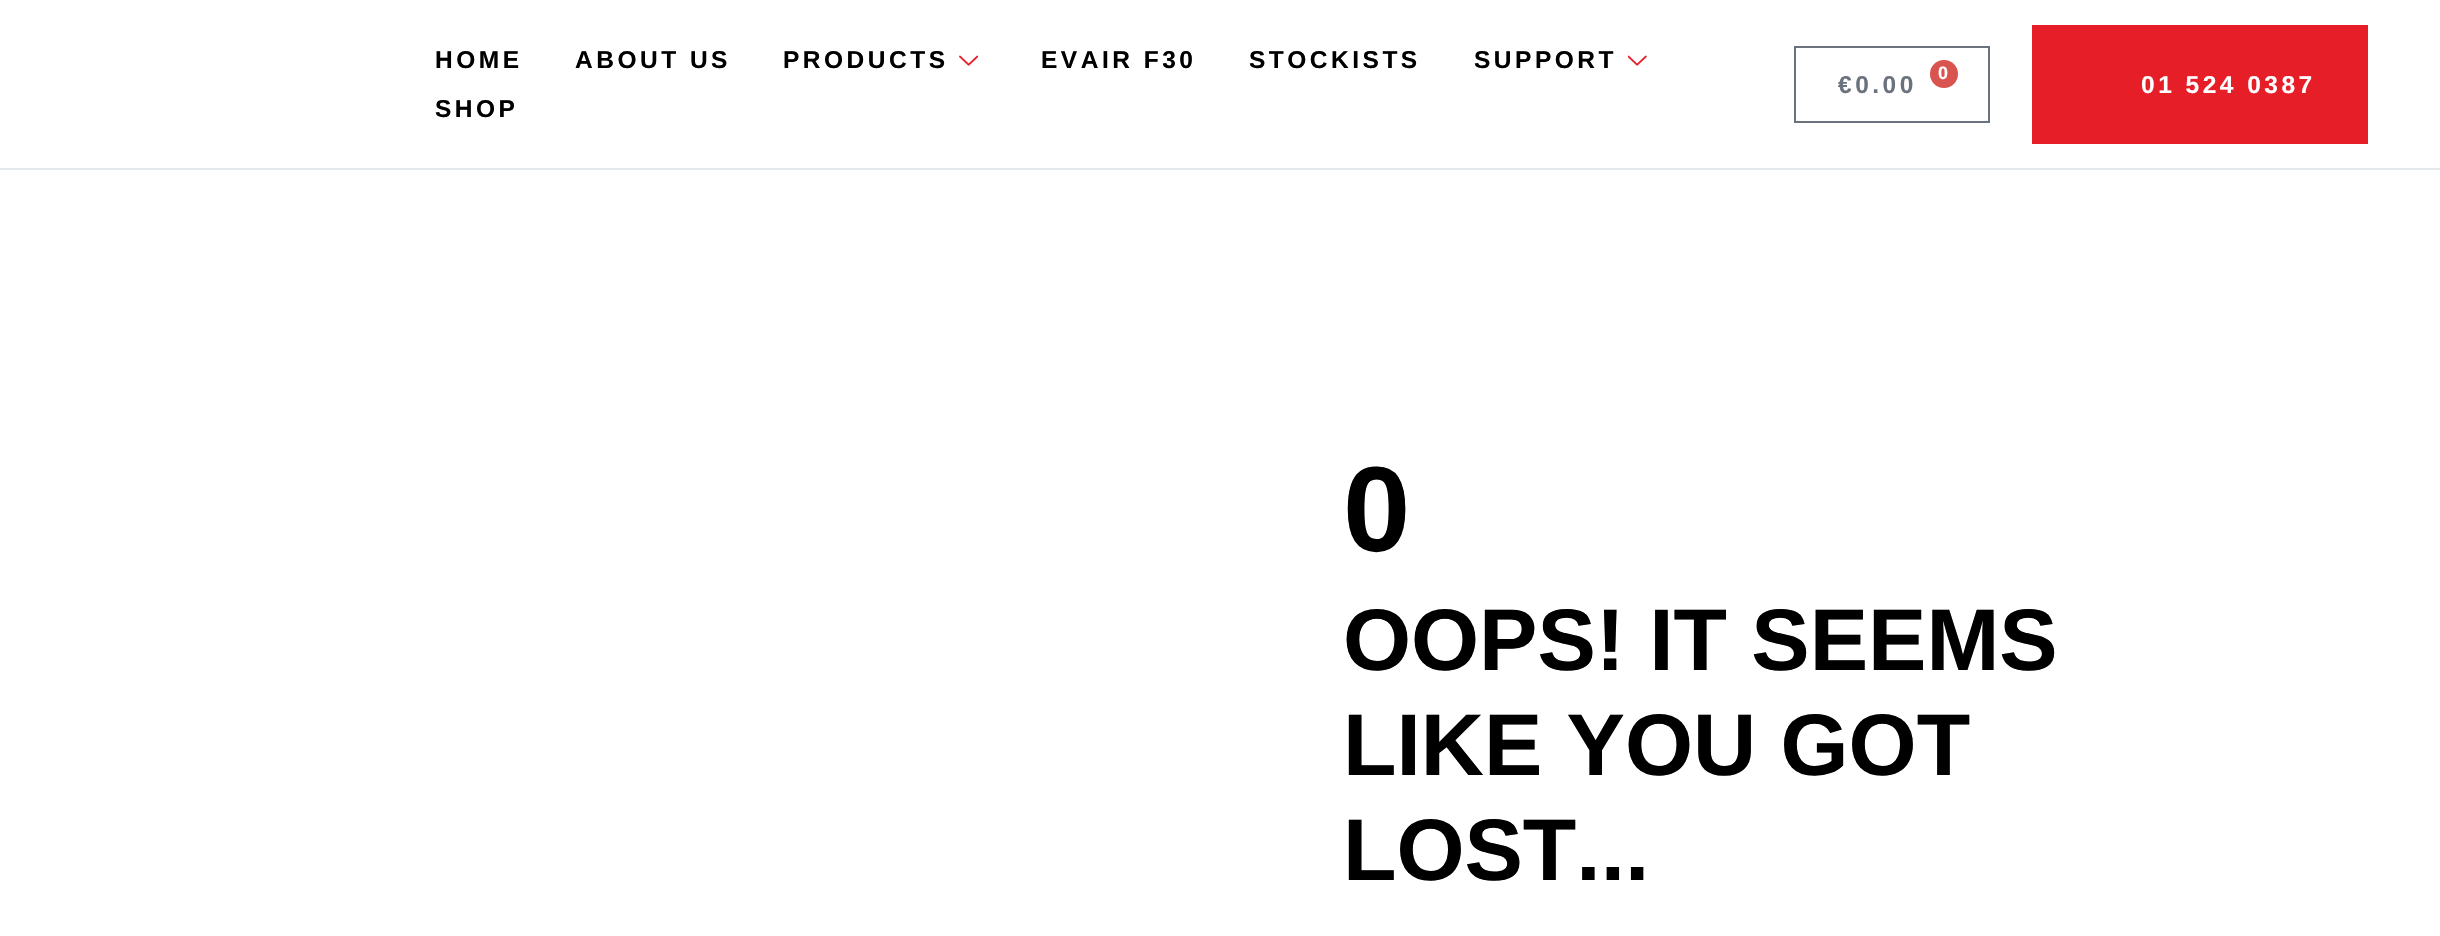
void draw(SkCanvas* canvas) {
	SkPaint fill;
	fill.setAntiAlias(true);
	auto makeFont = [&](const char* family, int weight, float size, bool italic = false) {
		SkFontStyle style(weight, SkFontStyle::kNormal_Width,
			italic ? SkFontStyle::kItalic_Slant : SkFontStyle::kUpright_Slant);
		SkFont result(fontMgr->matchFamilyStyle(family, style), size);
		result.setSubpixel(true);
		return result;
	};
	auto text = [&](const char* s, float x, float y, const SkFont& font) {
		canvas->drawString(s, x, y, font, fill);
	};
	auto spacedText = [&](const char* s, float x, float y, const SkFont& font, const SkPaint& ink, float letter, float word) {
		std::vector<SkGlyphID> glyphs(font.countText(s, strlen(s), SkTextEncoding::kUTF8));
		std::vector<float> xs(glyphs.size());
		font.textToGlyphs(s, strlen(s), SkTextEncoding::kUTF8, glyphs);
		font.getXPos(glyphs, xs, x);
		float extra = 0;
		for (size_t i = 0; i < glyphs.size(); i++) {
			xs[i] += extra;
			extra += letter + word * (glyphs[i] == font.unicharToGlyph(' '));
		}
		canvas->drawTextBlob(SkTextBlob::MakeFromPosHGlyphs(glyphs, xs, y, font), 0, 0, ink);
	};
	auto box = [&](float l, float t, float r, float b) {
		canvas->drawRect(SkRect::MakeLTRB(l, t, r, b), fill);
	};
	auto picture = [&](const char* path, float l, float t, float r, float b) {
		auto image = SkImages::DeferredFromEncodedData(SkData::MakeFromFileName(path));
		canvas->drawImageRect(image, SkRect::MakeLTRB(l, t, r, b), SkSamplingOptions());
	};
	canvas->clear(0xFFFFFFFF);
	fill.setColor(0xFFE6E9EB);
	box(0, 168, 2440, 170);
	picture("image0.png", 959, 55, 978, 66);
	picture("image1.png", 1628, 55, 1647, 66);
	fill.setStyle(SkPaint::kStroke_Style);
	fill.setStrokeWidth(2);
	fill.setColor(0xFF69727D);
	canvas->drawRect(SkRect::MakeLTRB(1795, 47, 1989, 122), fill);
	fill.setStyle(SkPaint::kFill_Style);
	fill.setColor(0xFFD9534F);
	canvas->drawCircle(1944, 74, 14, fill);
	fill.setColor(0xFFE61E28);
	box(2032, 25, 2368, 144);
	auto font1 = makeFont("Liberation Sans", 700, 24.5f);
	fill.setColor(0xFF000000);
	spacedText("HOME", 435, 68, font1, fill, 3.5f, 0);
	spacedText("ABOUT US", 575, 68, font1, fill, 3.5f, 0);
	spacedText("PRODUCTS", 783, 68, font1, fill, 3.5f, 0);
	spacedText("EVAIR F30", 1041, 68, font1, fill, 3.5f, 0);
	spacedText("STOCKISTS", 1249, 68, font1, fill, 3.5f, 0);
	spacedText("SUPPORT", 1474, 68, font1, fill, 3.5f, 0);
	spacedText("SHOP", 435, 117, font1, fill, 3.5f, 0);
	auto font2 = makeFont("Liberation Sans", 700, 18);
	fill.setColor(0xFFFFFFFF);
	spacedText("0", 1938, 79, font2, fill, 3.5f, 0);
	fill.setColor(0xFF69727D);
	spacedText("€0.00", 1838, 93, font1, fill, 3.5f, 0);
	fill.setColor(0xFFFFFFFF);
	spacedText("01 524 0387", 2141, 93, font1, fill, 3.5f, 0);
	auto font3 = makeFont("Liberation Sans", 700, 121);
	fill.setColor(0xFF000000);
	text("0", 1343, 551, font3);
	auto font4 = makeFont("Liberation Sans", 700, 87.5f);
	text("OOPS! IT SEEMS", 1343, 670, font4);
	text("LIKE YOU GOT", 1343, 775, font4);
	text("LOST...", 1343, 880, font4);
}
